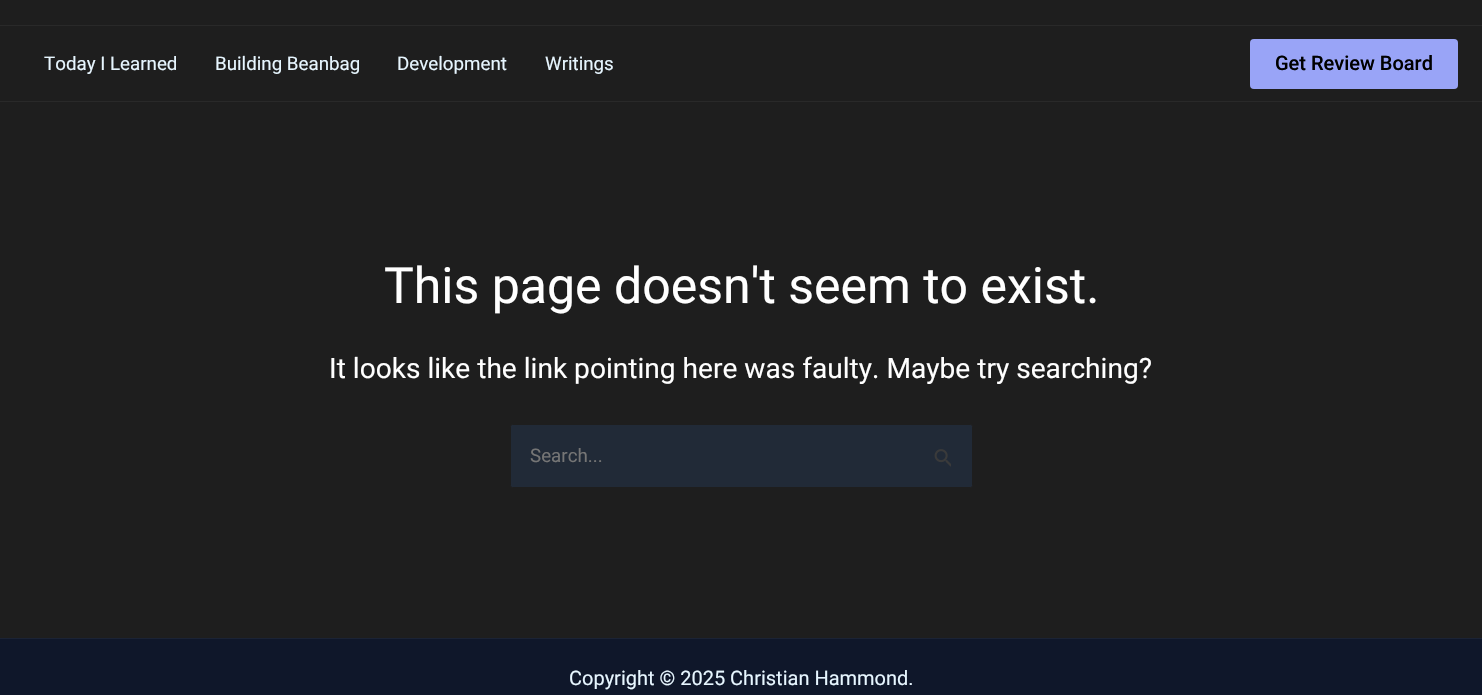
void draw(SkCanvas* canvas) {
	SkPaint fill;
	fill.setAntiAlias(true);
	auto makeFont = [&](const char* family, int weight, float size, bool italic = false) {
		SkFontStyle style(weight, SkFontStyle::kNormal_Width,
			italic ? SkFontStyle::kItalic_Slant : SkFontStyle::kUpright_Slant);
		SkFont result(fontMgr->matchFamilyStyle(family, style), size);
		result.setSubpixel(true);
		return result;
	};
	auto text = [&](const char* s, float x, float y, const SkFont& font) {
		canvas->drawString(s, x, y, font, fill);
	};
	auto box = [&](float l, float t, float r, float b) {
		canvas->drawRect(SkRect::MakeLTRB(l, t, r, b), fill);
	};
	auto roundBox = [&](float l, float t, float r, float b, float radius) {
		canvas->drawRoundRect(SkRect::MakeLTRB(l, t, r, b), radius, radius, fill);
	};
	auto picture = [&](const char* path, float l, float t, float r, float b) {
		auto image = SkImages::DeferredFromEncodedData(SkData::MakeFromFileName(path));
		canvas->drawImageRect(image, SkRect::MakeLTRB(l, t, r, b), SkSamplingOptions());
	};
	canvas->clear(0xFF1E1E1E);
	fill.setColor(0xFF292929);
	box(0, 25, 1482, 26);
	box(0, 101, 1482, 102);
	fill.setColor(0xFF99A4F7);
	roundBox(1250, 39, 1458, 89, 4);
	fill.setColor(0xFF212A37);
	canvas->drawRoundRect(SkRect::MakeLTRB(510.5f, 424.5f, 972.5f, 487.5f), 2, 2, fill);
	fill.setStyle(SkPaint::kStroke_Style);
	fill.setStrokeWidth(1);
	fill.setColor(0xFF1E1E1E);
	canvas->drawRoundRect(SkRect::MakeLTRB(510.5f, 424.5f, 972.5f, 487.5f), 2, 2, fill);
	picture("image0.png", 934, 449, 951, 467);
	fill.setStyle(SkPaint::kFill_Style);
	fill.setColor(0xFF0F172A);
	box(0, 639, 1482, 695);
	fill.setColor(0xFF1B2335);
	box(0, 638, 1482, 639);
	auto font1 = makeFont("Roboto", 400, 18.75f);
	fill.setColor(0xFFE7F6FF);
	text("Today I Learned", 44, 70, font1);
	text("Building Beanbag", 215, 70, font1);
	text("Development", 397, 70, font1);
	text("Writings", 545, 70, font1);
	auto font2 = makeFont("Roboto", 500, 20);
	fill.setColor(0xFF000000);
	text("Get Review Board", 1275, 70, font2);
	auto font3 = makeFont("Roboto", 400, 50);
	fill.setColor(0xFFFFFFFF);
	text("This page doesn't seem to exist.", 384, 303, font3);
	auto font4 = makeFont("Roboto", 400, 28.1f);
	text("It looks like the link pointing here was faulty. Maybe try searching?", 329, 378, font4);
	fill.setColor(0xFF757575);
	text("Search...", 530, 462, font1);
	auto font5 = makeFont("Roboto", 400, 20);
	fill.setColor(0xFFE7F6FF);
	text("Copyright © 2025 Christian Hammond.", 569, 685, font5);
}
